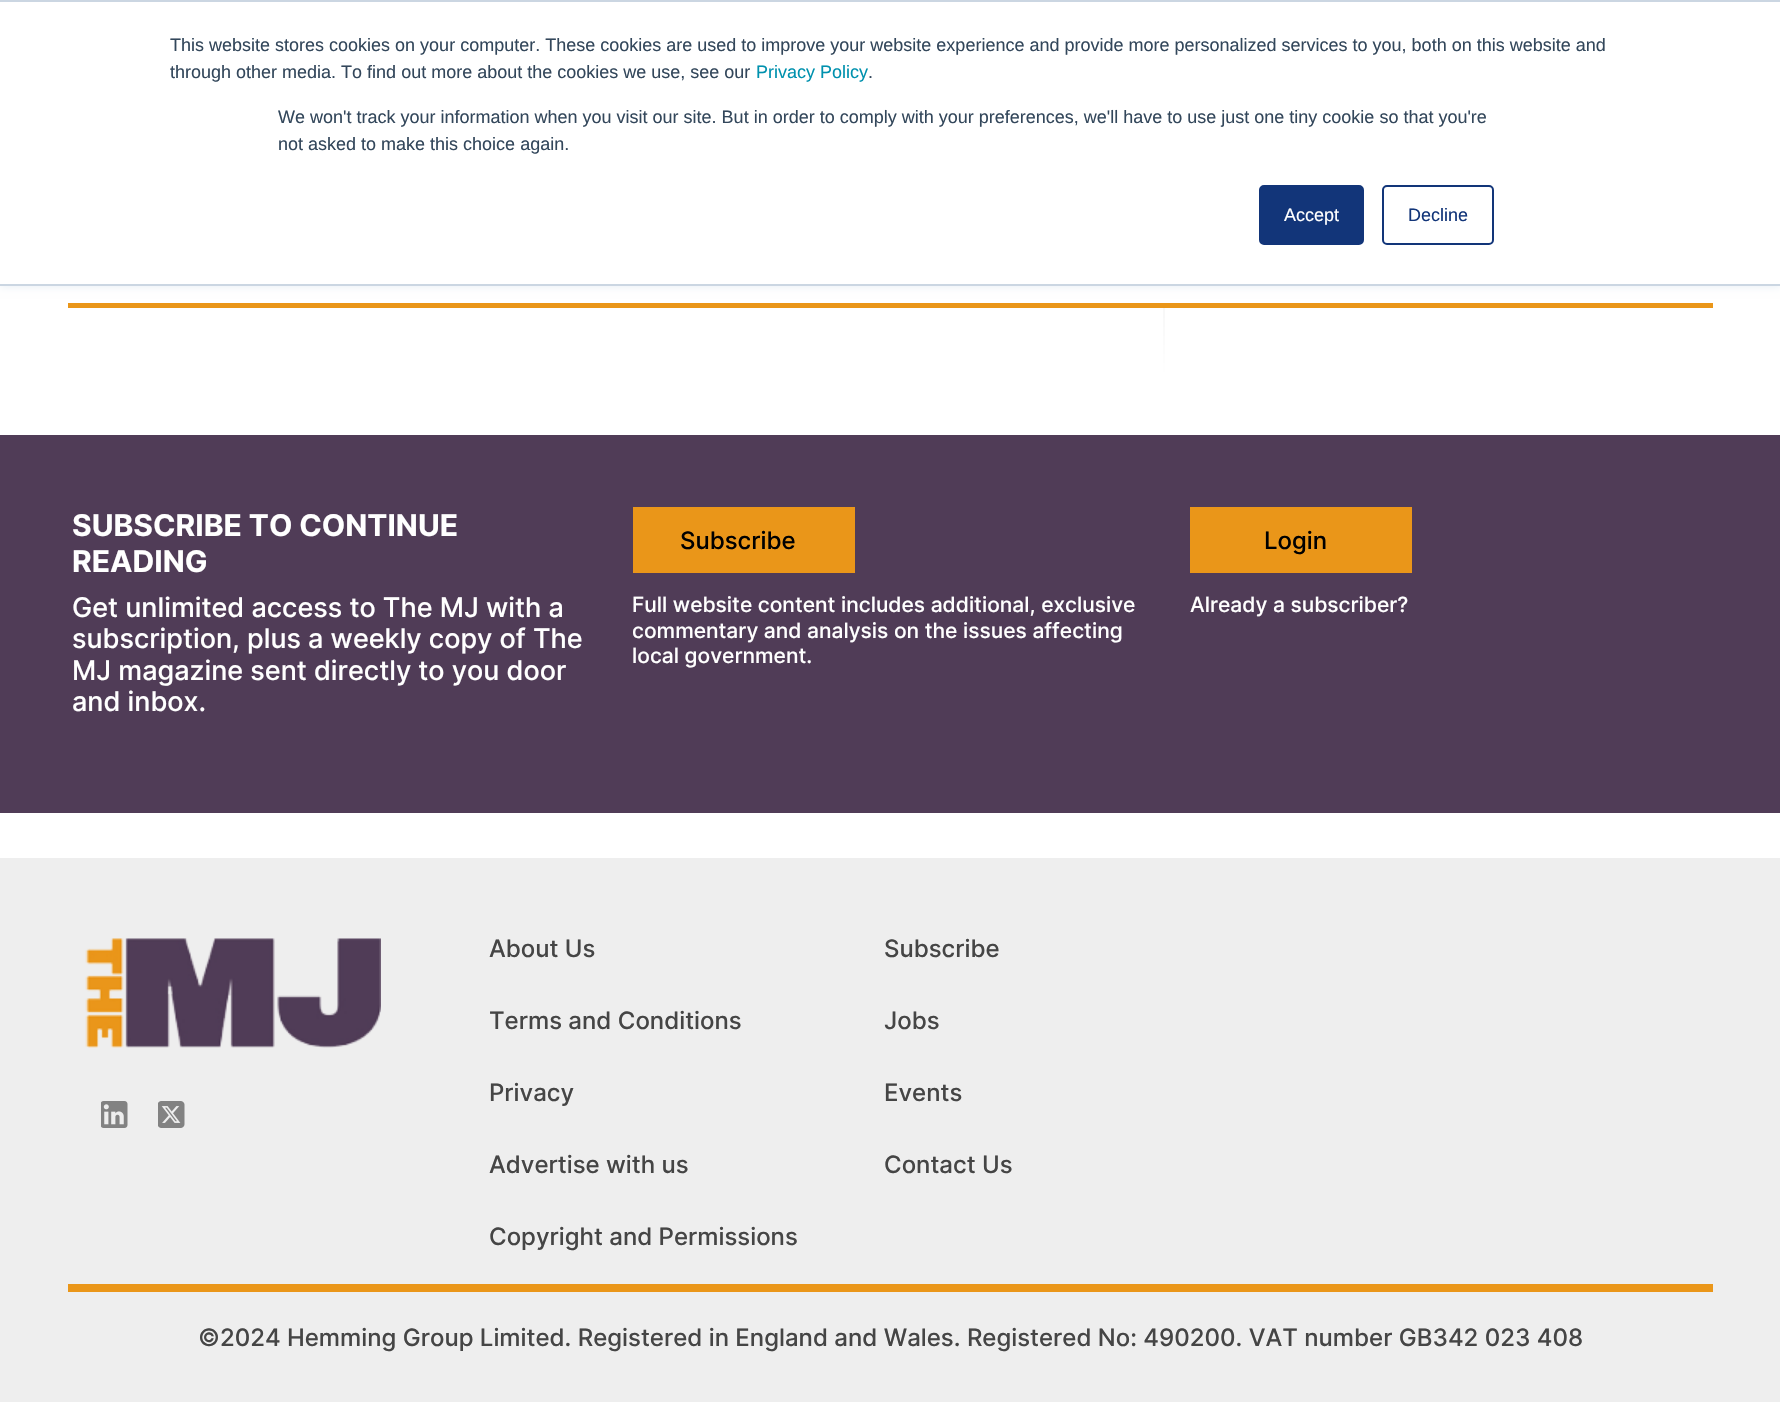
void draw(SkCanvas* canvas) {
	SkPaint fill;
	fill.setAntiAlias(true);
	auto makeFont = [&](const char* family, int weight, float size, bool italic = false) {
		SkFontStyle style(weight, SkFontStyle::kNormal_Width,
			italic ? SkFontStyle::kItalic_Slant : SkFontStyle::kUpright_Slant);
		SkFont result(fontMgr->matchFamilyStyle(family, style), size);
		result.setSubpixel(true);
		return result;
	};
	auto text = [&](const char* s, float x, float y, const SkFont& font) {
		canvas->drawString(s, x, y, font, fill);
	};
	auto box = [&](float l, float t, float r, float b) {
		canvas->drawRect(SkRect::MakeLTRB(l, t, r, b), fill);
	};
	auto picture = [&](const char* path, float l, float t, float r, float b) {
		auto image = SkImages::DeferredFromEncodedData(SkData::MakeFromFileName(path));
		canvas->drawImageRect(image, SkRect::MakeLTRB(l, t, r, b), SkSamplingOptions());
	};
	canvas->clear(0xFFFFFFFF);
	fill.setColor(0xFFEAF0F6);
	fill.setMaskFilter(SkMaskFilter::MakeBlur(kNormal_SkBlurStyle, 4));
	canvas->drawRect(SkRect::MakeLTRB(0, 2, 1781, 287), fill);
	fill.setMaskFilter(nullptr);
	fill.setColor(0xFFFFFFFF);
	box(0, 2, 1780, 284);
	fill.setColor(0xFFCBD6E2);
	box(0, 0, 1780, 2);
	box(0, 284, 1780, 286);
	fill.setColor(0xFF123579);
	canvas->drawRoundRect(SkRect::MakeLTRB(1260, 186, 1363, 244), 4, 4, fill);
	fill.setStyle(SkPaint::kStroke_Style);
	fill.setStrokeWidth(2);
	canvas->drawRoundRect(SkRect::MakeLTRB(1260, 186, 1363, 244), 4, 4, fill);
	canvas->drawRoundRect(SkRect::MakeLTRB(1383, 186, 1493, 244), 4, 4, fill);
	fill.setStyle(SkPaint::kFill_Style);
	fill.setColor(0xFFEA9619);
	box(68, 303, 1713, 308);
	fill.setColor(0xFFEEEEEE);
	box(1163, 308, 1165, 381);
	{
		const SkColor colors[] = {0xFFFFFFFF, 0x00FFFFFF};
		const float stops[] = {0, 0.43f};
		const SkPoint ends[] = {{863, 381}, {863, 6}};
		fill.setShader(SkGradientShader::MakeLinear(ends, colors, stops, 2, SkTileMode::kClamp));
		fill.setAlpha(255);
	}
	box(1163, 308, 1165, 381);
	fill.setShader(nullptr);
	fill.setColor(0xFF503C57);
	box(0, 435, 1780, 813);
	fill.setColor(0xFFEA9619);
	box(633, 507, 855, 573);
	box(1190, 507, 1412, 573);
	fill.setColor(0xFFEEEEEE);
	box(0, 858, 1780, 1402);
	picture("image0.png", 85, 938, 381, 1048);
	picture("image1.png", 101, 1101, 128, 1128);
	picture("image2.png", 158, 1101, 185, 1128);
	fill.setColor(0xFFEA9619);
	box(68, 1284, 1713, 1292);
	auto font1 = makeFont("Liberation Sans", 400, 18);
	fill.setColor(0xFF33475B);
	text("This website stores cookies on your computer. These cookies are used to improve your website experience and provide more personalized services to you, both on this website and", 170, 51, font1);
	text("through other media. To find out more about the cookies we use, see our", 170, 78, font1);
	fill.setColor(0xFF0091AE);
	text("Privacy Policy", 756, 78, font1);
	fill.setColor(0xFF33475B);
	text(".", 868, 78, font1);
	text("We won't track your information when you visit our site. But in order to comply with your preferences, we'll have to use just one tiny cookie so that you're", 278, 123, font1);
	text("not asked to make this choice again.", 278, 150, font1);
	fill.setColor(0xFFFFFFFF);
	text("Accept", 1284, 221, font1);
	fill.setColor(0xFF123579);
	text("Decline", 1408, 221, font1);
	auto font2 = makeFont("Inter", 700, 30);
	fill.setColor(0xFFFFFFFF);
	text("SUBSCRIBE TO CONTINUE", 72, 536, font2);
	text("READING", 72, 572, font2);
	auto font3 = makeFont("Inter", 500, 27);
	text("Get unlimited access to The MJ with a", 72, 617, font3);
	text("subscription, plus a weekly copy of The", 72, 648, font3);
	text("MJ magazine sent directly to you door", 72, 680, font3);
	text("and inbox.", 72, 711, font3);
	auto font4 = makeFont("Inter", 500, 24);
	fill.setColor(0xFF000000);
	text("Subscribe", 680, 549, font4);
	auto font5 = makeFont("Inter", 500, 21);
	fill.setColor(0xFFFFFFFF);
	text("Full website content includes additional, exclusive", 632, 612, font5);
	text("commentary and analysis on the issues affecting", 632, 638, font5);
	text("local government.", 632, 663, font5);
	fill.setColor(0xFF000000);
	text("Login", 1264, 549, font4);
	fill.setColor(0xFFFFFFFF);
	text("Already a subscriber?", 1190, 612, font5);
	fill.setColor(0xFF454545);
	text("About Us", 489, 957, font4);
	text("Terms and Conditions", 489, 1029, font4);
	text("Privacy", 489, 1101, font4);
	text("Advertise with us", 489, 1173, font4);
	text("Copyright and Permissions", 489, 1245, font4);
	text("Subscribe", 884, 957, font4);
	text("Jobs", 884, 1029, font4);
	text("Events", 884, 1101, font4);
	text("Contact Us", 884, 1173, font4);
	text("©2024 Hemming Group Limited. Registered in England and Wales. Registered No: 490200. VAT number GB342 023 408", 198, 1346, font4);
}
